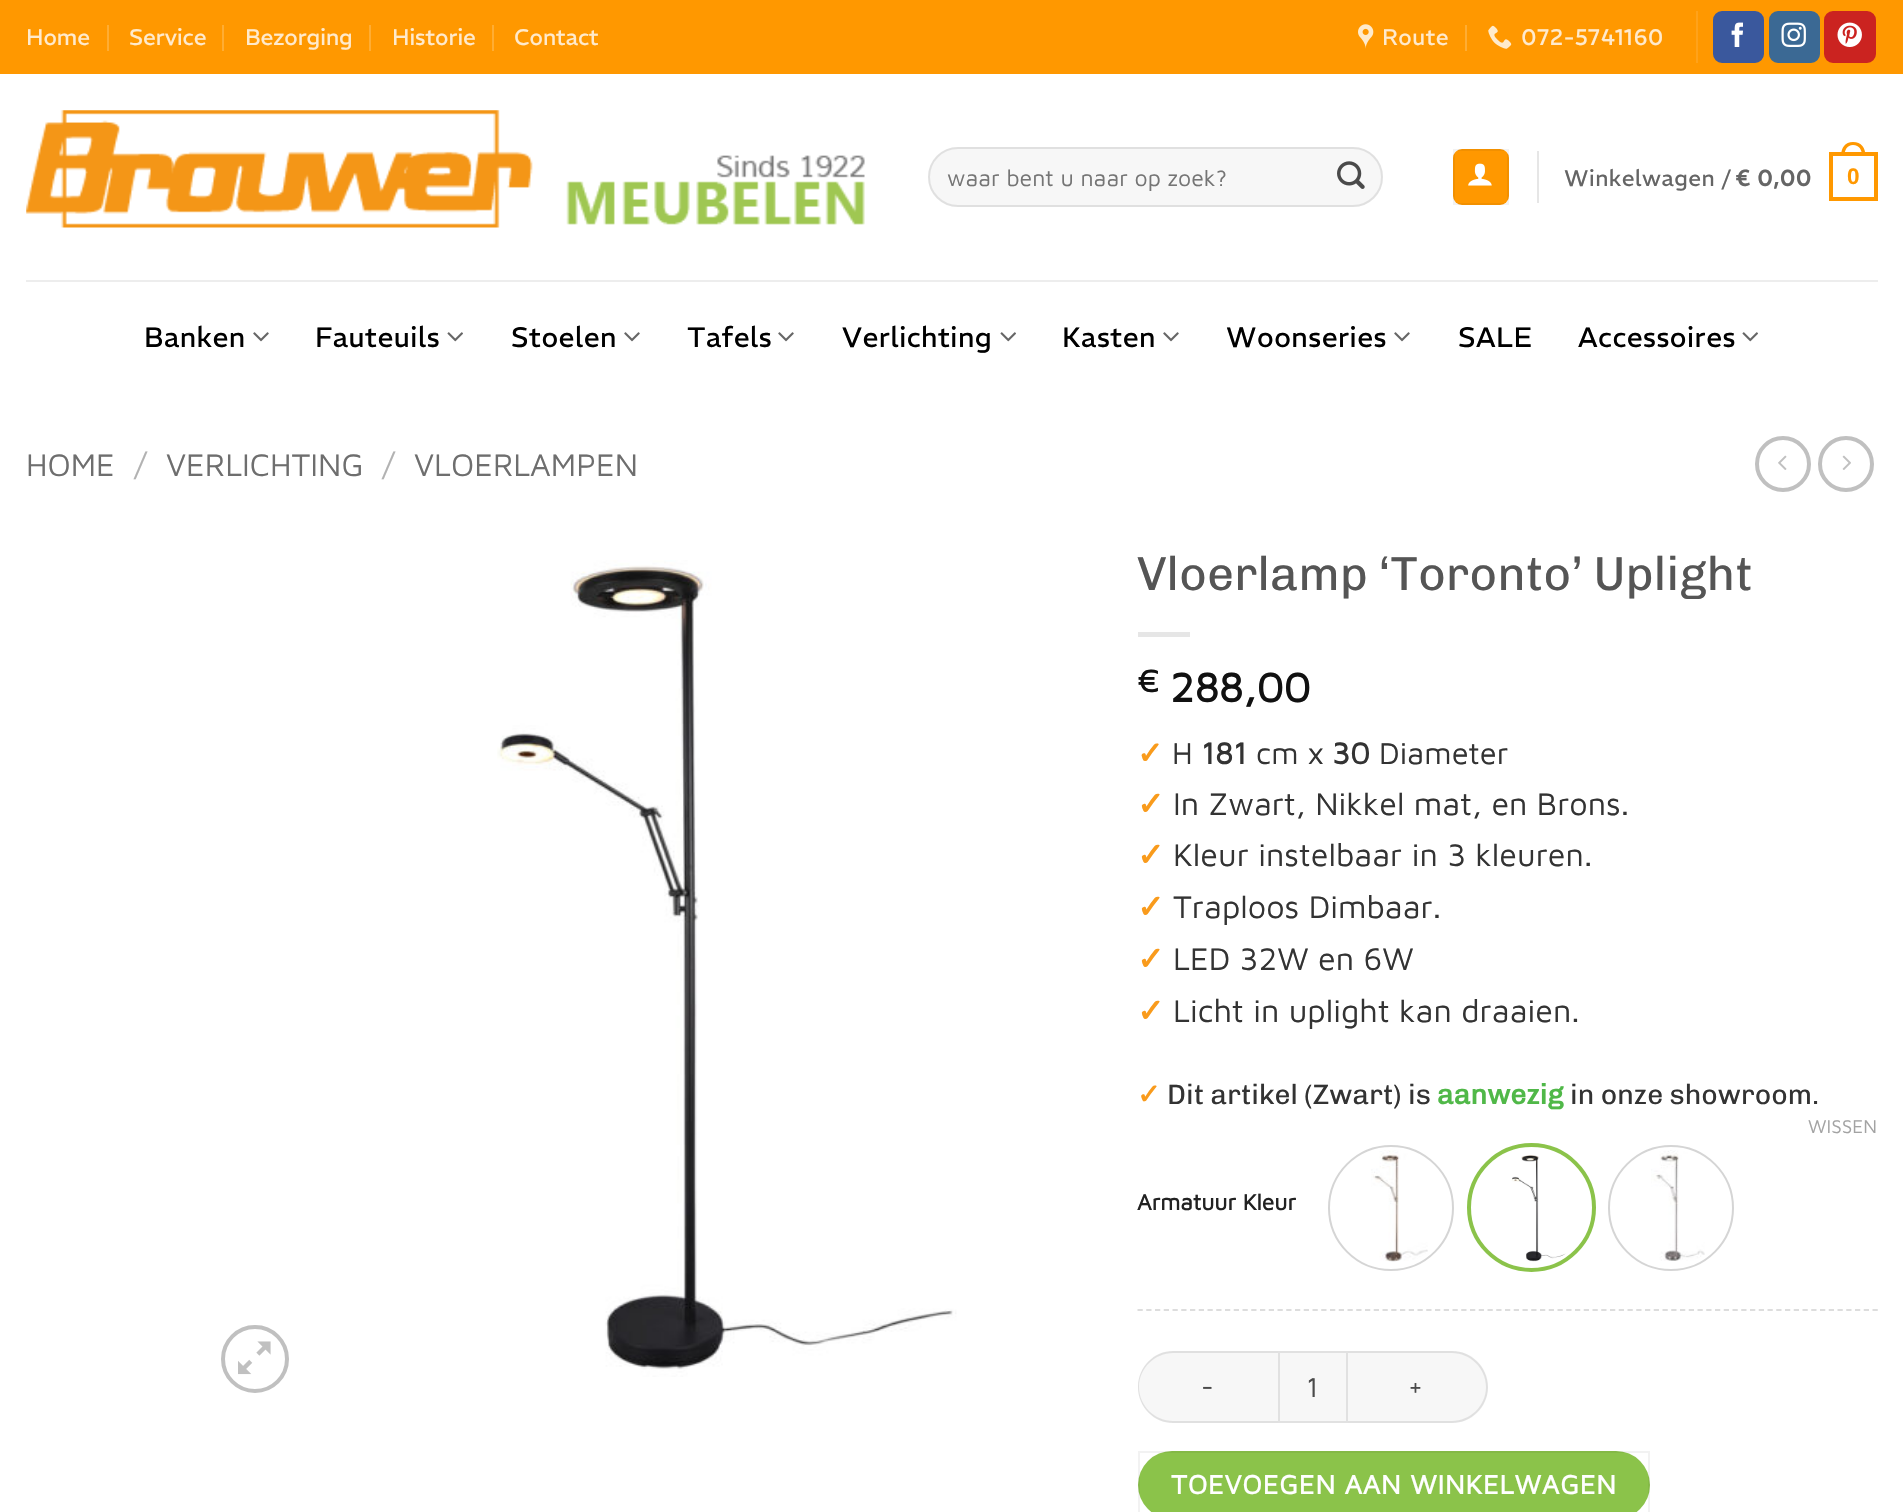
void draw(SkCanvas* canvas) {
	SkPaint fill;
	fill.setAntiAlias(true);
	auto makeFont = [&](const char* family, int weight, float size, bool italic = false) {
		SkFontStyle style(weight, SkFontStyle::kNormal_Width,
			italic ? SkFontStyle::kItalic_Slant : SkFontStyle::kUpright_Slant);
		SkFont result(fontMgr->matchFamilyStyle(family, style), size);
		result.setSubpixel(true);
		return result;
	};
	auto text = [&](const char* s, float x, float y, const SkFont& font) {
		canvas->drawString(s, x, y, font, fill);
	};
	auto spacedText = [&](const char* s, float x, float y, const SkFont& font, const SkPaint& ink, float letter, float word) {
		std::vector<SkGlyphID> glyphs(font.countText(s, strlen(s), SkTextEncoding::kUTF8));
		std::vector<float> xs(glyphs.size());
		font.textToGlyphs(s, strlen(s), SkTextEncoding::kUTF8, glyphs);
		font.getXPos(glyphs, xs, x);
		float extra = 0;
		for (size_t i = 0; i < glyphs.size(); i++) {
			xs[i] += extra;
			extra += letter + word * (glyphs[i] == font.unicharToGlyph(' '));
		}
		canvas->drawTextBlob(SkTextBlob::MakeFromPosHGlyphs(glyphs, xs, y, font), 0, 0, ink);
	};
	auto box = [&](float l, float t, float r, float b) {
		canvas->drawRect(SkRect::MakeLTRB(l, t, r, b), fill);
	};
	auto roundBox = [&](float l, float t, float r, float b, float radius) {
		canvas->drawRoundRect(SkRect::MakeLTRB(l, t, r, b), radius, radius, fill);
	};
	auto picture = [&](const char* path, float l, float t, float r, float b) {
		auto image = SkImages::DeferredFromEncodedData(SkData::MakeFromFileName(path));
		canvas->drawImageRect(image, SkRect::MakeLTRB(l, t, r, b), SkSamplingOptions());
	};
	canvas->clear(0xFFFFFFFF);
	fill.setColor(0xFFFF9800);
	box(0, 0, 1903, 74);
	fill.setColor(0xFFFFAD33);
	box(107, 25, 109, 51);
	box(222, 25, 224, 51);
	box(369, 25, 371, 51);
	box(492, 25, 494, 51);
	picture("image0.png", 1358, 24, 1374, 49);
	box(1465, 25, 1467, 51);
	picture("image1.png", 1488, 25, 1512, 49);
	fill.setColor(0xFFFFA21A);
	box(1696, 11, 1698, 63);
	fill.setColor(0xFF3A589D);
	canvas->drawRoundRect(SkRect::MakeLTRB(1714, 12, 1763, 62), 8, 8, fill);
	fill.setStyle(SkPaint::kStroke_Style);
	fill.setStrokeWidth(2);
	canvas->drawRoundRect(SkRect::MakeLTRB(1714, 12, 1763, 62), 8, 8, fill);
	picture("image2.png", 1731, 22, 1743, 47);
	fill.setStyle(SkPaint::kFill_Style);
	fill.setColor(0xFF3B6994);
	canvas->drawRoundRect(SkRect::MakeLTRB(1770, 12, 1819, 62), 8, 8, fill);
	fill.setStyle(SkPaint::kStroke_Style);
	canvas->drawRoundRect(SkRect::MakeLTRB(1770, 12, 1819, 62), 8, 8, fill);
	picture("image3.png", 1781, 22, 1806, 47);
	fill.setStyle(SkPaint::kFill_Style);
	fill.setColor(0xFFCB2320);
	canvas->drawRoundRect(SkRect::MakeLTRB(1825, 12, 1875, 62), 8, 8, fill);
	fill.setStyle(SkPaint::kStroke_Style);
	canvas->drawRoundRect(SkRect::MakeLTRB(1825, 12, 1875, 62), 8, 8, fill);
	picture("image4.png", 1837, 22, 1862, 47);
	picture("image5.png", 26, 110, 865, 228);
	fill.setStyle(SkPaint::kFill_Style);
	fill.setColor(0xFFF7F7F7);
	roundBox(928, 147, 1383, 207, 30);
	fill.setStyle(SkPaint::kStroke_Style);
	fill.setColor(0x17000000);
	canvas->drawRoundRect(SkRect::MakeLTRB(929, 148, 1382, 206), 29, 29, fill);
	picture("image6.png", 1337, 161, 1365, 189);
	fill.setStyle(SkPaint::kFill_Style);
	fill.setColor(0xFFFF9800);
	roundBox(1453, 149, 1509, 205, 9);
	fill.setStyle(SkPaint::kStroke_Style);
	fill.setColor(0x0D000000);
	canvas->drawRect(SkRect::MakeLTRB(1454, 150, 1508, 204), fill);
	picture("image7.png", 1468, 163, 1492, 186);
	fill.setStyle(SkPaint::kFill_Style);
	fill.setColor(0xFFE6E6E6);
	box(1537, 151, 1539, 203);
	fill.setStyle(SkPaint::kStroke_Style);
	fill.setStrokeWidth(4);
	fill.setColor(0xFFFF9800);
	canvas->drawRect(SkRect::MakeLTRB(1831, 154, 1876, 199), fill);
	fill.setStyle(SkPaint::kFill_Style);
	canvas->drawPath(SkPathBuilder(SkPathFillType::kEvenOdd).moveTo(1853, 142).cubicTo(1861.5f, 142, 1865.5f, 148, 1865.5f, 156).lineTo(1841, 156).cubicTo(1841, 148, 1845, 142, 1853, 142).close().moveTo(1853, 145).cubicTo(1859.5f, 145, 1862, 150, 1862, 156).lineTo(1844.5f, 156).cubicTo(1844.5f, 150, 1847, 145, 1853, 145).close().detach(), fill);
	fill.setColor(0xFFEDEDED);
	box(26, 280, 1878, 282);
	picture("image8.png", 253, 332, 269, 342);
	picture("image9.png", 447, 332, 463, 342);
	picture("image8.png", 624, 332, 640, 342);
	picture("image8.png", 778, 332, 794, 342);
	picture("image9.png", 1000, 332, 1016, 342);
	picture("image8.png", 1163, 332, 1179, 342);
	picture("image8.png", 1394, 332, 1410, 342);
	picture("image9.png", 1742, 332, 1758, 342);
	fill.setStyle(SkPaint::kStroke_Style);
	fill.setColor(0xFFC0C0C0);
	canvas->drawCircle(1783, 464, 26, fill);
	picture("image10.png", 1778, 455, 1787, 470);
	canvas->drawCircle(1846, 464, 26, fill);
	picture("image11.png", 1842, 455, 1851, 470);
	canvas->drawCircle(255, 1359, 32, fill);
	picture("image12.png", 238, 1341, 271, 1375);
	picture("image13.png", 497, 560, 957, 1377);
	fill.setStyle(SkPaint::kFill_Style);
	fill.setColor(0xFFE6E6E6);
	box(1138, 632, 1190, 637);
	fill.setStyle(SkPaint::kStroke_Style);
	fill.setStrokeWidth(2);
	fill.setColor(0xFFD5D5D5);
	canvas->drawCircle(1391, 1208, 62, fill);
	picture("image14.png", 1371, 1150, 1428, 1262);
	fill.setStrokeWidth(4);
	fill.setColor(0xFF8BC34A);
	canvas->drawCircle(1531.5f, 1207.5f, 62.5f, fill);
	picture("image15.png", 1511, 1155, 1566, 1262);
	fill.setStrokeWidth(2);
	fill.setColor(0xFFD5D5D5);
	canvas->drawCircle(1671, 1208, 62, fill);
	picture("image16.png", 1651, 1150, 1705, 1261);
	fill.setStrokeWidth(1.8f);
	fill.setColor(0xFFDDDDDD);
	fill.setPathEffect(SkDashPathEffect::Make({{5.25f, 3.5f}}, 0));
	canvas->drawPath(SkPathBuilder().moveTo(1137.5f, 1310).lineTo(1878, 1310).detach(), fill);
	fill.setPathEffect(nullptr);
	fill.setStyle(SkPaint::kFill_Style);
	fill.setColor(0xFFF7F7F7);
	canvas->drawPath(SkPathBuilder().moveTo(1174, 1351).lineTo(1278, 1351).lineTo(1278, 1423).lineTo(1174, 1423).cubicTo(1154, 1423, 1138, 1407, 1138, 1387).cubicTo(1138, 1367, 1154, 1351, 1174, 1351).close().detach(), fill);
	fill.setColor(0x17000000);
	canvas->drawPath(SkPathBuilder(SkPathFillType::kEvenOdd).moveTo(1173, 1351).lineTo(1278, 1351).lineTo(1278, 1423).lineTo(1173, 1423).cubicTo(1154, 1423, 1138, 1407, 1138, 1387).cubicTo(1138, 1367, 1154, 1351, 1173, 1351).close().moveTo(1173, 1353).lineTo(1278, 1353).lineTo(1278, 1421).lineTo(1173, 1421).cubicTo(1155, 1421, 1139, 1406, 1139, 1387).cubicTo(1139, 1368, 1155, 1353, 1173, 1353).close().detach(), fill);
	fill.setColor(0xFFF7F7F7);
	canvas->drawRect(SkRect::MakeLTRB(1279, 1352, 1347, 1422), fill);
	fill.setStyle(SkPaint::kStroke_Style);
	fill.setStrokeWidth(2);
	fill.setColor(0xFFE1E1E1);
	canvas->drawRect(SkRect::MakeLTRB(1279, 1352, 1347, 1422), fill);
	fill.setStyle(SkPaint::kFill_Style);
	fill.setColor(0xFFF7F7F7);
	canvas->drawPath(SkPathBuilder().moveTo(1348, 1351).lineTo(1452, 1351).cubicTo(1472, 1351, 1488, 1367, 1488, 1387).cubicTo(1488, 1407, 1472, 1423, 1452, 1423).lineTo(1348, 1423).close().detach(), fill);
	fill.setColor(0x17000000);
	canvas->drawPath(SkPathBuilder(SkPathFillType::kEvenOdd).moveTo(1348, 1351).lineTo(1452, 1351).cubicTo(1471, 1351, 1488, 1367, 1488, 1387).cubicTo(1488, 1407, 1471, 1423, 1452, 1423).lineTo(1348, 1423).close().moveTo(1348, 1353).lineTo(1452, 1353).cubicTo(1470, 1353, 1486, 1368, 1486, 1387).cubicTo(1486, 1406, 1470, 1421, 1452, 1421).lineTo(1348, 1421).close().detach(), fill);
	fill.setColor(0xFF8BC34A);
	roundBox(1138, 1451, 1650, 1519, 34);
	fill.setStyle(SkPaint::kStroke_Style);
	fill.setColor(0x0D000000);
	canvas->drawRect(SkRect::MakeLTRB(1139, 1452, 1649, 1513), fill);
	auto font1 = makeFont("REM", 500, 22.5f);
	fill.setStyle(SkPaint::kFill_Style);
	fill.setColor(0xFFFFEACC);
	text("Home", 26, 45, font1);
	text("Service", 129, 45, font1);
	text("Bezorging", 245, 45, font1);
	text("Historie", 392, 45, font1);
	text("Contact", 514, 45, font1);
	spacedText("Route", 1382, 45, font1, fill, 0.5f, 0);
	spacedText("072-5741160", 1521, 45, font1, fill, 0.5f, 0);
	auto font2 = makeFont("Maven Pro", 400, 23.1f);
	fill.setColor(0xFF757575);
	text("waar bent u naar op zoek?", 947, 186, font2);
	fill.setColor(0xFF656565);
	spacedText("Winkelwagen /", 1564, 186, font1, fill, 0.5f, 0);
	auto font3 = makeFont("REM", 700, 22.5f);
	spacedText("€ 0,00", 1736, 186, font3, fill, 0.5f, 0);
	auto font4 = makeFont("Liberation Sans", 700, 22.5f);
	fill.setColor(0xFFFF9800);
	spacedText("0", 1847, 184, font4, fill, 0.5f, 0);
	auto font5 = makeFont("REM", 500, 28);
	fill.setColor(0xFF000000);
	spacedText("Banken", 144, 347, font5, fill, 0.5f, 0);
	spacedText("Fauteuils", 315, 347, font5, fill, 0.5f, 0);
	spacedText("Stoelen", 511, 347, font5, fill, 0.5f, 0);
	spacedText("Tafels", 687, 347, font5, fill, 0.5f, 0);
	spacedText("Verlichting", 842, 347, font5, fill, 0.5f, 0);
	spacedText("Kasten", 1062, 347, font5, fill, 0.5f, 0);
	spacedText("Woonseries", 1226, 347, font5, fill, 0.5f, 0);
	spacedText("SALE", 1458, 347, font5, fill, 0.5f, 0);
	spacedText("Accessoires", 1578, 347, font5, fill, 0.5f, 0);
	auto font6 = makeFont("Maven Pro", 400, 32.25f);
	fill.setColor(0xFF6E6E6E);
	text("HOME", 26, 476, font6);
	fill.setColor(0xFFB2B2B2);
	text("/", 134, 476, font6);
	fill.setColor(0xFF6E6E6E);
	text("VERLICHTING", 166, 476, font6);
	fill.setColor(0xFFB2B2B2);
	text("/", 382, 476, font6);
	fill.setColor(0xFF6E6E6E);
	text("VLOERLAMPEN", 414, 476, font6);
	auto font7 = makeFont("Chivo", 500, 47.6f);
	fill.setColor(0xFF555555);
	text("Vloerlamp ‘Toronto’ Uplight", 1137, 590, font7);
	auto font8 = makeFont("Maven Pro", 700, 32);
	fill.setColor(0xFF111111);
	text("€", 1137, 692, font8);
	auto font9 = makeFont("Maven Pro", 700, 42);
	text("288,00", 1170, 702, font9);
	auto font10 = makeFont("DejaVu Sans", 700, 31);
	fill.setColor(0xFFF99B1C);
	text("✓", 1137, 764, font10);
	auto font11 = makeFont("Maven Pro", 400, 31);
	fill.setColor(0xFF333333);
	text("H", 1172, 764, font11);
	auto font12 = makeFont("Maven Pro", 700, 31);
	text("181", 1201, 764, font12);
	text("cm x", 1256, 764, font11);
	text("30", 1332, 764, font12);
	text("Diameter", 1379, 764, font11);
	auto font13 = makeFont("DejaVu Sans", 700, 32.3f);
	fill.setColor(0xFFF99B1C);
	text("✓", 1137, 815, font13);
	auto font14 = makeFont("Maven Pro", 400, 32.3f);
	fill.setColor(0xFF333333);
	text("In Zwart, Nikkel mat, en Brons.", 1173, 815, font14);
	fill.setColor(0xFFF99B1C);
	text("✓", 1137, 866, font13);
	fill.setColor(0xFF333333);
	text("Kleur instelbaar in 3 kleuren.", 1173, 866, font14);
	fill.setColor(0xFFF99B1C);
	text("✓", 1137, 918, font13);
	fill.setColor(0xFF333333);
	text("Traploos Dimbaar.", 1173, 918, font14);
	fill.setColor(0xFFF99B1C);
	text("✓", 1137, 970, font13);
	fill.setColor(0xFF333333);
	text("LED 32W en 6W", 1173, 970, font14);
	fill.setColor(0xFFF99B1C);
	text("✓", 1137, 1022, font13);
	fill.setColor(0xFF333333);
	text("Licht in uplight kan draaien.", 1173, 1022, font14);
	auto font15 = makeFont("DejaVu Sans", 700, 28);
	fill.setColor(0xFFF99B1C);
	text("✓", 1137, 1104, font15);
	auto font16 = makeFont("Chivo", 500, 28);
	fill.setColor(0xFF333333);
	text("Dit artikel (Zwart) is", 1167, 1104, font16);
	auto font17 = makeFont("Chivo", 700, 28);
	fill.setColor(0xFF50B848);
	text("aanwezig", 1437, 1104, font17);
	fill.setColor(0xFF333333);
	text("in onze showroom.", 1570, 1104, font16);
	auto font18 = makeFont("Maven Pro", 400, 19);
	fill.setColor(0xFFA3A3A3);
	text("WISSEN", 1808, 1133, font18);
	auto font19 = makeFont("Maven Pro", 700, 22.75f);
	fill.setColor(0xFF222222);
	text("Armatuur Kleur", 1137, 1210, font19);
	auto font20 = makeFont("Maven Pro", 400, 27.2f);
	fill.setColor(0xFF4A4A4A);
	spacedText("-", 1201, 1396, font20, fill, 0.8f, 0);
	auto font21 = makeFont("Maven Pro", 400, 28);
	text("1", 1306, 1397, font21);
	spacedText("+", 1408, 1396, font20, fill, 0.8f, 0);
	auto font22 = makeFont("Maven Pro", 700, 27.2f);
	fill.setColor(0xFFFFFFFF);
	spacedText("TOEVOEGEN AAN WINKELWAGEN", 1171, 1494, font22, fill, 0.8f, 0);
}
